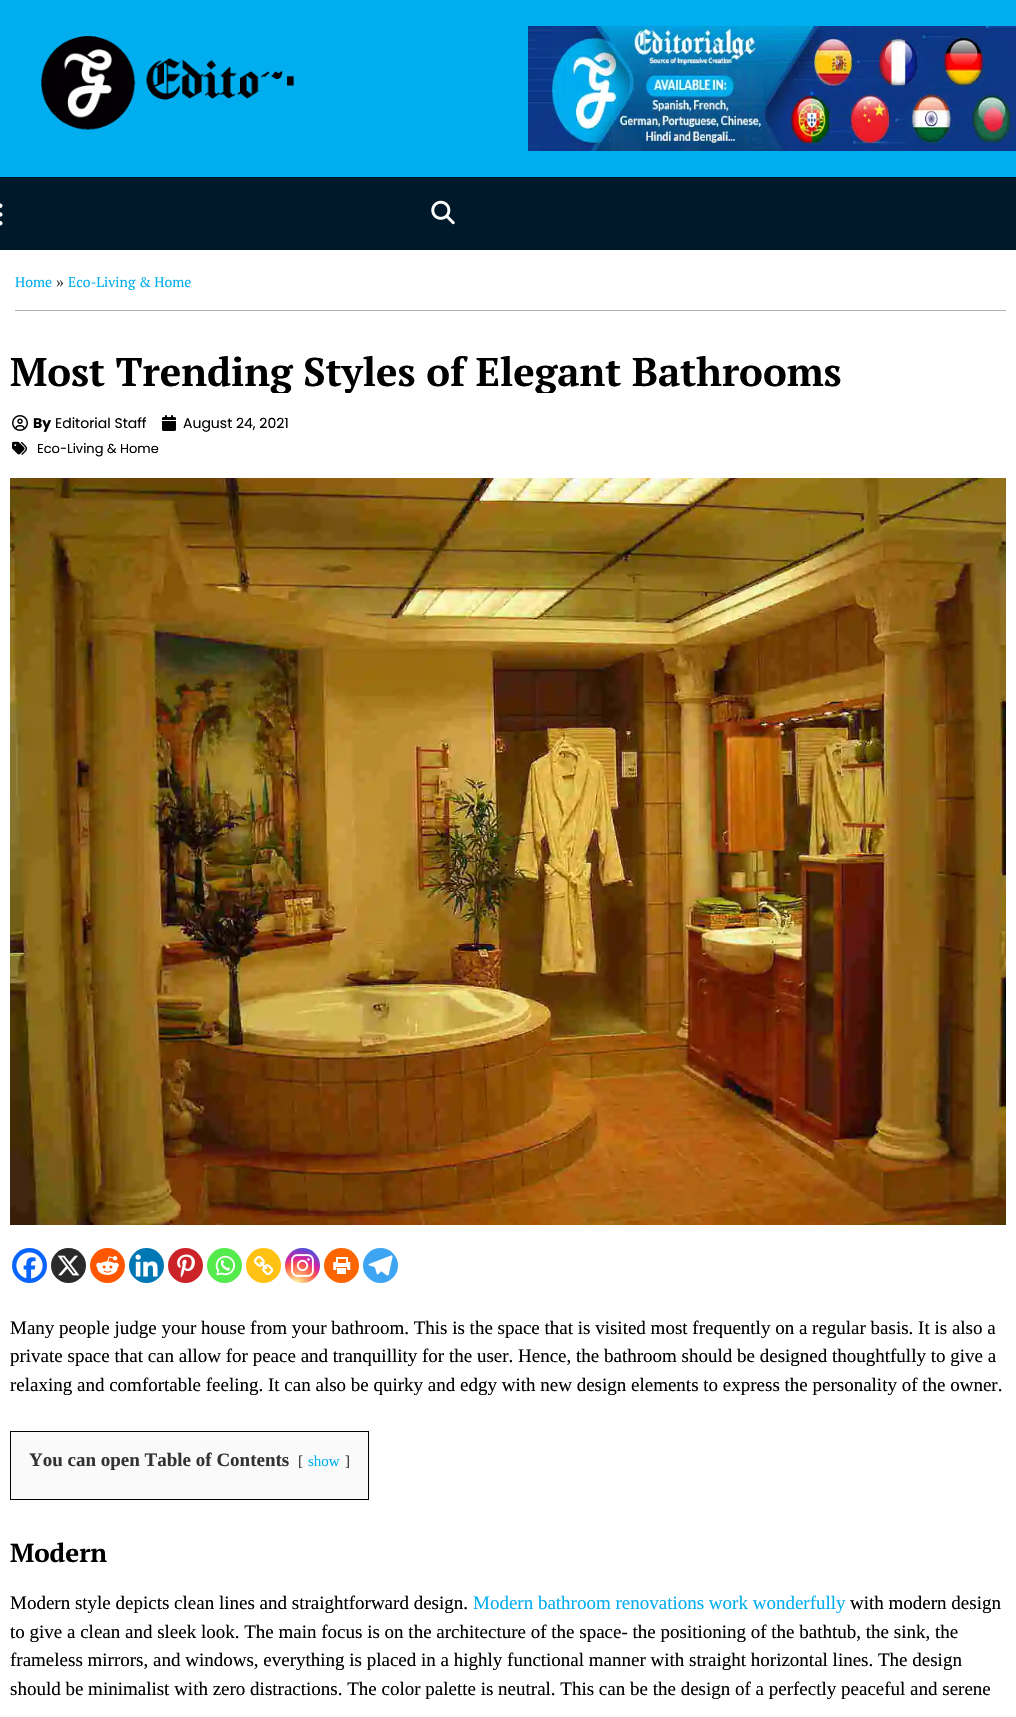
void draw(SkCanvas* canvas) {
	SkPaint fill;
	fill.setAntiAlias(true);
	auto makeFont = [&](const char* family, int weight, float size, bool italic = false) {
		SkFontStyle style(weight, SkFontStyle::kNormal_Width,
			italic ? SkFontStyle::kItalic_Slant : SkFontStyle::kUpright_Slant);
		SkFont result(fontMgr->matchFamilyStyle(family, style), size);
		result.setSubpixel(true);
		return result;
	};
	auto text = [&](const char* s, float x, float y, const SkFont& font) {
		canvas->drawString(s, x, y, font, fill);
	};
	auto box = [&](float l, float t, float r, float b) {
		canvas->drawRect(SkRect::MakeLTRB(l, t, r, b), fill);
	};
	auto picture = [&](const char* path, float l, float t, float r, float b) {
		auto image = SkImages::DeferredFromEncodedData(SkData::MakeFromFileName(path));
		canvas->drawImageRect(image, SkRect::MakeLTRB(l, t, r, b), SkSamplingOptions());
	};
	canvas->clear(0xFFFFFFFF);
	fill.setColor(0xFF00AEEF);
	box(0, 0, 1016, 177);
	picture("image0.png", 41, 36, 295, 130);
	picture("image1.png", 528, 26, 1016, 151);
	fill.setColor(0xFF00192A);
	box(0, 177, 1016, 250);
	picture("image2.png", 0, 203, 3, 226);
	picture("image3.png", 431, 200, 455, 225);
	fill.setColor(0xFFAEB2B8);
	box(15, 310, 1006, 311);
	picture("image4.png", 12, 415, 28, 431);
	picture("image5.png", 162, 415, 176, 431);
	picture("image6.png", 12, 441, 27, 455);
	picture("image7.png", 10, 478, 1006, 1225);
	fill.setColor(0xFF0765FE);
	canvas->drawCircle(29.5f, 1265.5f, 17.5f, fill);
	picture("image8.png", 16, 1252, 43, 1279);
	fill.setColor(0xFF2A2A2A);
	canvas->drawCircle(68.5f, 1265.5f, 17.5f, fill);
	picture("image9.png", 57, 1255, 80, 1276);
	fill.setColor(0xFFFF5700);
	canvas->drawCircle(107.5f, 1265.5f, 17.5f, fill);
	picture("image10.png", 96, 1256, 119, 1275);
	fill.setColor(0xFF0077B5);
	canvas->drawCircle(146.5f, 1265.5f, 17.5f, fill);
	picture("image11.png", 135, 1254, 158, 1277);
	fill.setColor(0xFFCC2329);
	canvas->drawCircle(185.5f, 1265.5f, 17.5f, fill);
	picture("image12.png", 177, 1254, 195, 1278);
	fill.setColor(0xFF55EB4C);
	canvas->drawCircle(224.5f, 1265.5f, 17.5f, fill);
	picture("image13.png", 215, 1255, 235, 1276);
	fill.setColor(0xFFFFC112);
	canvas->drawCircle(263.5f, 1265.5f, 17.5f, fill);
	picture("image14.png", 253, 1255, 274, 1276);
	{
		const SkColor colors[] = {0xFFFDF497, 0xFFFDF497, 0xFFFD5949, 0xFFD6249F, 0xFF285AEB};
		const float stops[] = {0, 0.05f, 0.45f, 0.6f, 0.9f};
		fill.setShader(SkGradientShader::MakeRadial({296, 1285}, 45, colors, stops, 5, SkTileMode::kClamp));
		fill.setAlpha(255);
	}
	canvas->drawCircle(302.5f, 1265.5f, 17.5f, fill);
	picture("image15.png", 291, 1254, 314, 1277);
	fill.setShader(nullptr);
	fill.setColor(0xFFFD6500);
	canvas->drawCircle(341.5f, 1265.5f, 17.5f, fill);
	picture("image16.png", 333, 1257, 351, 1274);
	fill.setColor(0xFF3DA5F1);
	canvas->drawCircle(380.5f, 1265.5f, 17.5f, fill);
	picture("image17.png", 368, 1255, 393, 1276);
	fill.setColor(0xFFFAFAFA);
	canvas->drawRect(SkRect::MakeLTRB(10.5f, 1431.5f, 368.5f, 1499.5f), fill);
	fill.setStyle(SkPaint::kStroke_Style);
	fill.setStrokeWidth(1);
	fill.setColor(0xFF000000);
	canvas->drawRect(SkRect::MakeLTRB(10.5f, 1431.5f, 368.5f, 1499.5f), fill);
	auto font1 = makeFont("PT Serif", 400, 14);
	fill.setStyle(SkPaint::kFill_Style);
	fill.setColor(0xFF00AEEF);
	text("Home", 15, 287, font1);
	auto font2 = makeFont("Liberation Serif", 400, 16);
	fill.setColor(0xFF333333);
	text("»", 56, 287, font2);
	fill.setColor(0xFF00AEEF);
	text("Eco-Living & Home", 68, 287, font1);
	canvas->save();
	canvas->clipRect(SkRect::MakeLTRB(10, 348, 1006, 393));
	auto font3 = makeFont("PT Serif", 700, 40);
	fill.setColor(0xFF000000);
	text("Most Trending Styles of Elegant Bathrooms", 10, 386, font3);
	canvas->restore();
	auto font4 = makeFont("Poppins", 700, 14);
	text("By", 33, 428, font4);
	auto font5 = makeFont("Poppins", 400, 14);
	text("Editorial Staff", 55, 428, font5);
	text("August 24, 2021", 183, 428, font5);
	auto font6 = makeFont("Poppins", 400, 13);
	text("Eco-Living & Home", 37, 453, font6);
	auto font7 = makeFont("Liberation Serif", 400, 19);
	text("Many people judge your house from your bathroom. This is the space that is visited most frequently on a regular basis. It is also a", 10, 1334, font7);
	text("private space that can allow for peace and tranquillity for the user. Hence, the bathroom should be designed thoughtfully to give a", 10, 1362, font7);
	text("relaxing and comfortable feeling. It can also be quirky and edgy with new design elements to express the personality of the owner.", 10, 1391, font7);
	auto font8 = makeFont("Liberation Serif", 700, 19);
	fill.setColor(0xFF333333);
	text("You can open Table of Contents", 29, 1466, font8);
	auto font9 = makeFont("Liberation Serif", 400, 15);
	text("[", 298, 1466, font9);
	fill.setColor(0xFF00AEEF);
	text("show", 308, 1466, font9);
	fill.setColor(0xFF333333);
	text("]", 345, 1466, font9);
	auto font10 = makeFont("PT Serif", 700, 26);
	fill.setColor(0xFF000000);
	text("Modern", 10, 1562, font10);
	text("Modern style depicts clean lines and straightforward design.", 10, 1609, font7);
	fill.setColor(0xFF00AEEF);
	text("Modern bathroom renovations work wonderfully", 473, 1609, font7);
	fill.setColor(0xFF000000);
	text("with modern design", 850, 1609, font7);
	text("to give a clean and sleek look. The main focus is on the architecture of the space- the positioning of the bathtub, the sink, the", 10, 1638, font7);
	text("frameless mirrors, and windows, everything is placed in a highly functional manner with straight horizontal lines. The design", 10, 1666, font7);
	text("should be minimalist with zero distractions. The color palette is neutral. This can be the design of a perfectly peaceful and serene", 10, 1695, font7);
}
